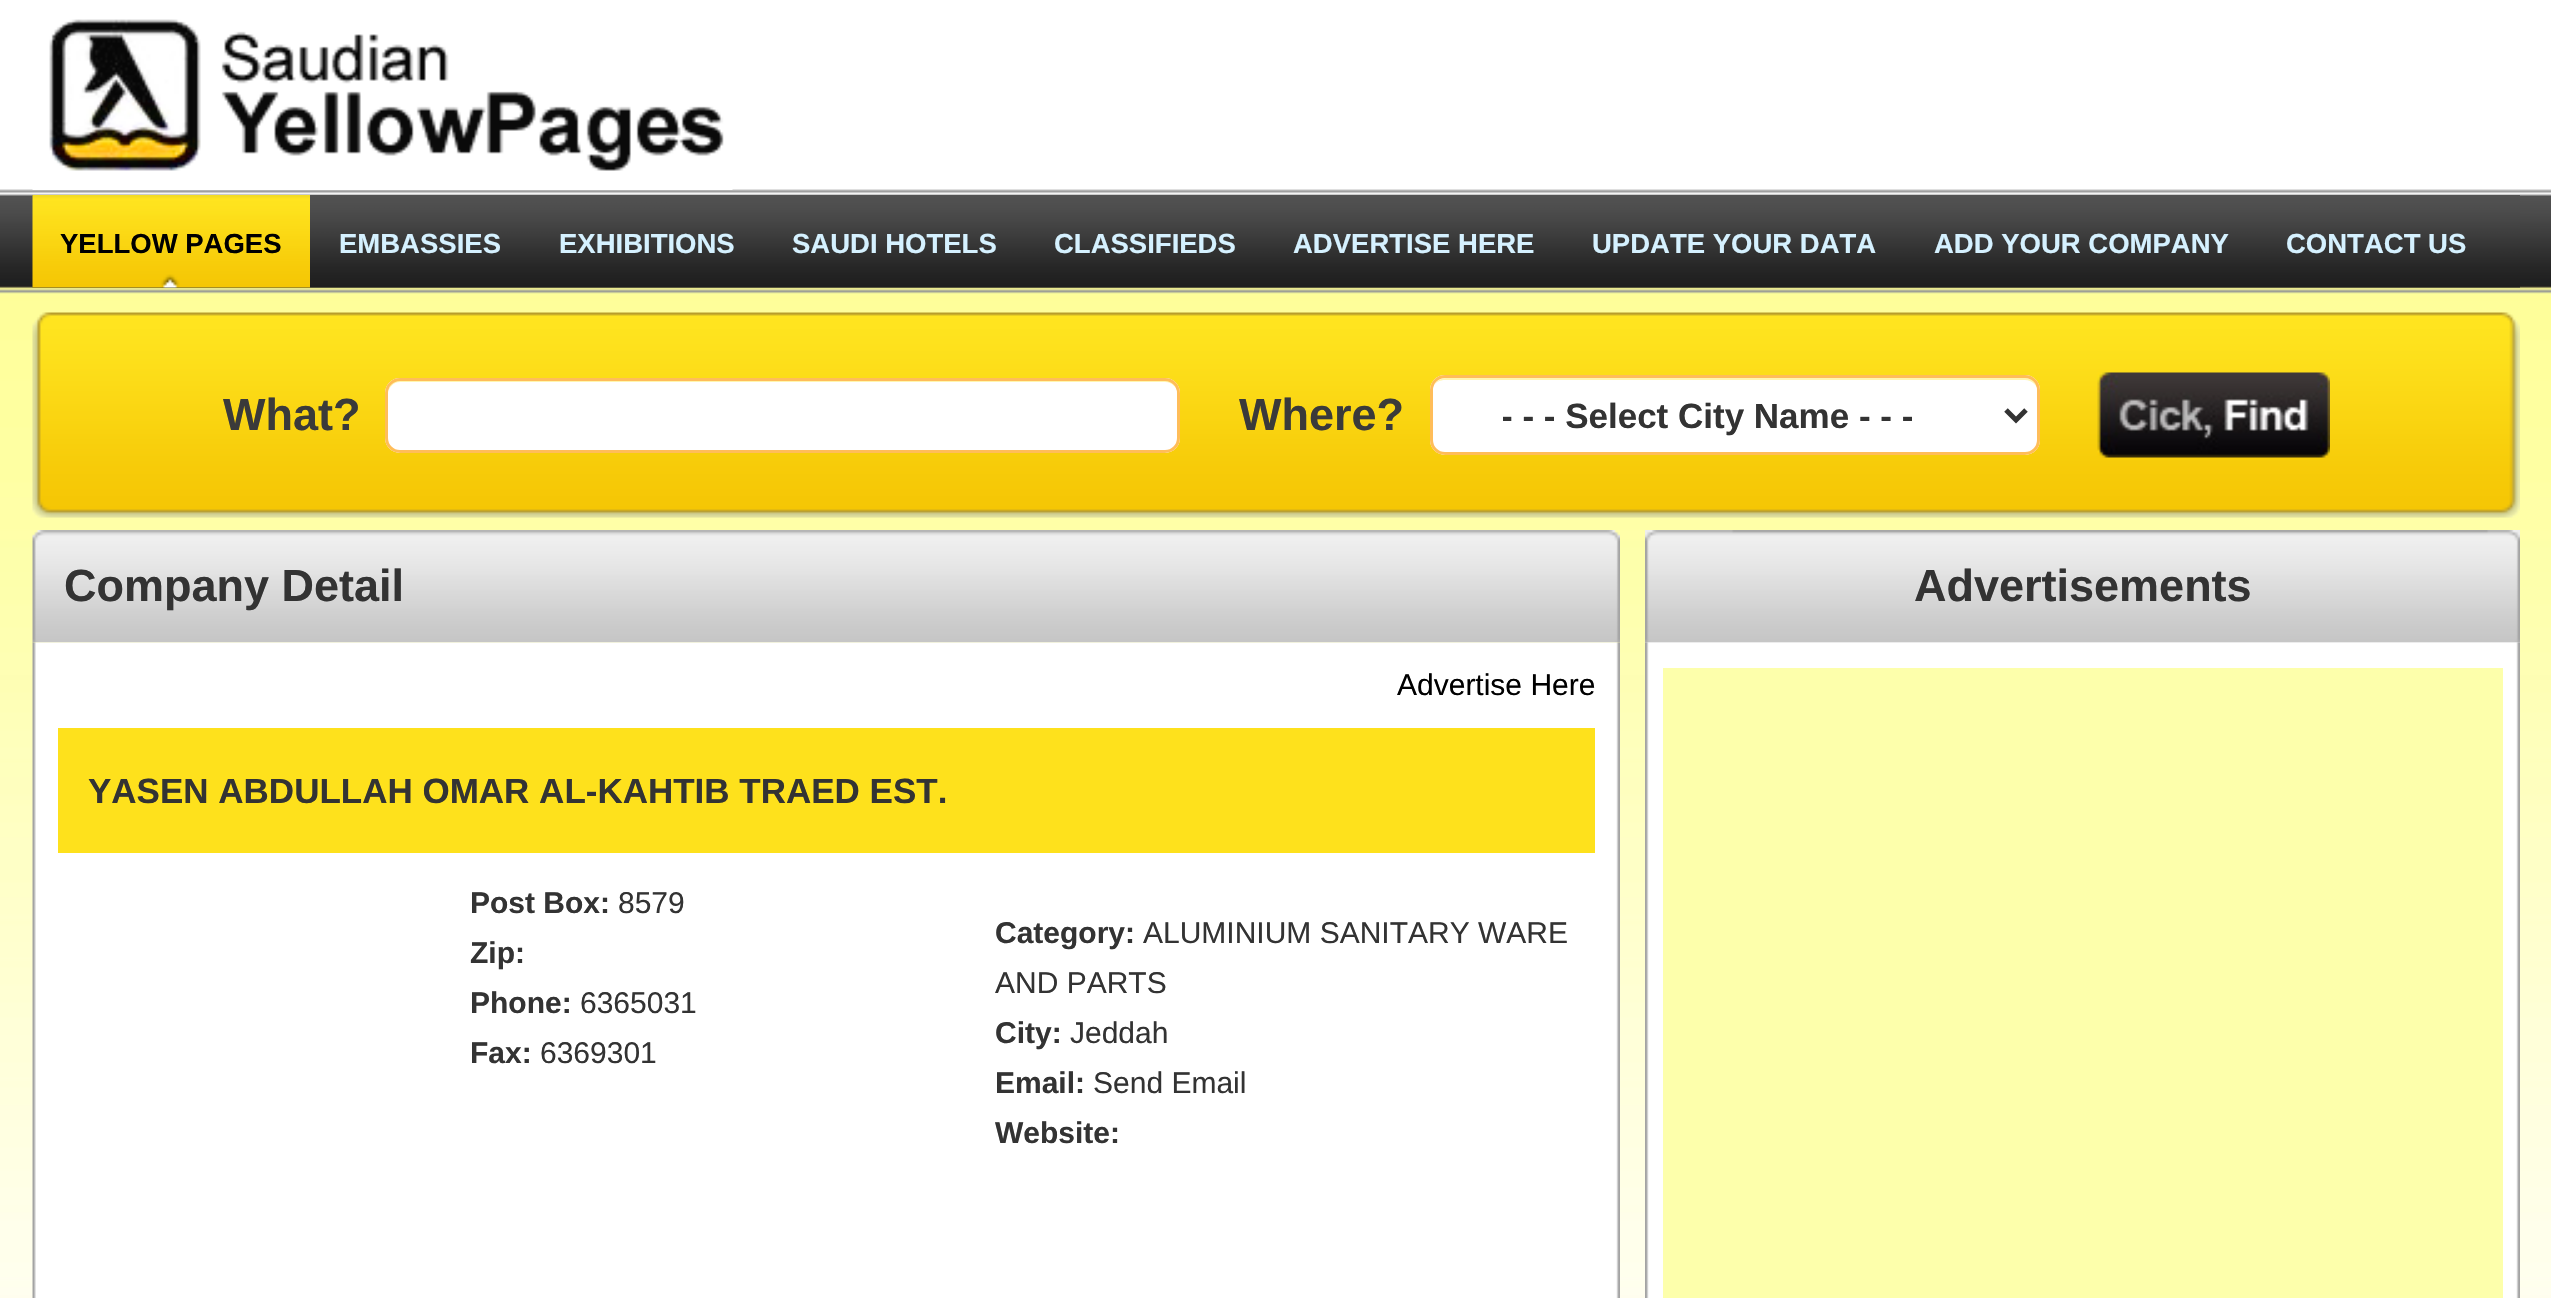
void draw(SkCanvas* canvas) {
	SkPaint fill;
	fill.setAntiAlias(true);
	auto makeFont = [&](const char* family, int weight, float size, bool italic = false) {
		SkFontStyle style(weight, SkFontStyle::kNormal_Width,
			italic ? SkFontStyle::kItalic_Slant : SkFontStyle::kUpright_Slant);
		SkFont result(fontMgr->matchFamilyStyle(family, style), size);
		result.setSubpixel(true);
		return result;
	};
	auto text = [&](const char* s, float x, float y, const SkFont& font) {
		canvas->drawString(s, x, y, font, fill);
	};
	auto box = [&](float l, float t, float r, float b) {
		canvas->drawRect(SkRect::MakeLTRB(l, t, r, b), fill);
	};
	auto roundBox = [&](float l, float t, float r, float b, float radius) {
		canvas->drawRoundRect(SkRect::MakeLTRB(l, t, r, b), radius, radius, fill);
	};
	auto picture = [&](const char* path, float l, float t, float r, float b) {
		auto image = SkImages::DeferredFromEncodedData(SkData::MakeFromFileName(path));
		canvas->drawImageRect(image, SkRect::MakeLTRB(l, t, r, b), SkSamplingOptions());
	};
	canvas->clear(0xFFFFFFFF);
	picture("image0.png", 0, 189, 2551, 1298);
	picture("image1.png", 32, 19, 733, 190);
	picture("image2.png", 32, 195, 2520, 288);
	picture("image3.png", 32, 195, 310, 288);
	picture("image4.png", 32, 312, 2520, 518);
	fill.setColor(0xFFFFFFFF);
	roundBox(385, 378, 1180, 453, 15);
	fill.setColor(0xFFFFF6AF);
	canvas->drawPath(SkPathBuilder().moveTo(400, 382).lineTo(1165, 382).cubicTo(1172, 382, 1178, 388, 1178, 395).cubicTo(1178, 387, 1174, 380, 1165, 380).lineTo(401, 380).cubicTo(392, 380, 388, 387, 388, 395).cubicTo(388, 388, 393, 382, 400, 382).close().detach(), fill);
	fill.setStyle(SkPaint::kStroke_Style);
	fill.setStrokeWidth(3);
	fill.setColor(0xFFFFBD59);
	canvas->drawRoundRect(SkRect::MakeLTRB(386.5f, 379.5f, 1178.5f, 451.5f), 13.5f, 13.5f, fill);
	fill.setStyle(SkPaint::kFill_Style);
	fill.setColor(0xFFFFFFFF);
	roundBox(1430, 375, 2040, 455, 15);
	fill.setColor(0xFFFFF6AF);
	canvas->drawPath(SkPathBuilder().moveTo(1445, 380).lineTo(2025, 380).cubicTo(2032, 380, 2038, 386, 2038, 392).lineTo(2038, 391).cubicTo(2038, 384, 2032, 378, 2025, 378).lineTo(1446, 378).cubicTo(1441, 378, 1436, 381, 1434, 386).cubicTo(1436, 382, 1440, 380, 1445, 380).close().detach(), fill);
	fill.setStyle(SkPaint::kStroke_Style);
	fill.setColor(0xFFFFBD59);
	canvas->drawRoundRect(SkRect::MakeLTRB(1431.5f, 376.5f, 2038.5f, 453.5f), 13.5f, 13.5f, fill);
	fill.setStrokeWidth(5);
	fill.setColor(0xFF333333);
	canvas->drawPath(SkPathBuilder().moveTo(2006, 410).lineTo(2016, 420).lineTo(2026, 410).detach(), fill);
	picture("image5.png", 2097, 372, 2330, 458);
	picture("image6.png", 32, 530, 1620, 643);
	picture("image7.png", 32, 642, 1620, 1298);
	fill.setStyle(SkPaint::kFill_Style);
	fill.setColor(0xFFFEE11C);
	box(58, 728, 1595, 853);
	fill.setColor(0xFFEDEDED);
	box(1645, 530, 2520, 643);
	picture("image8.png", 1645, 530, 2520, 643);
	picture("image9.png", 1645, 642, 2520, 1298);
	fill.setColor(0xFFFDFFAB);
	box(1663, 668, 2503, 1298);
	auto font1 = makeFont("Liberation Sans", 700, 27.5f);
	fill.setColor(0xFF000000);
	text("YELLOW PAGES", 60, 253, font1);
	fill.setColor(0xFFD5F1FF);
	text("EMBASSIES", 339, 253, font1);
	text("EXHIBITIONS", 559, 253, font1);
	text("SAUDI HOTELS", 792, 253, font1);
	text("CLASSIFIEDS", 1054, 253, font1);
	text("ADVERTISE HERE", 1293, 253, font1);
	text("UPDATE YOUR DATA", 1592, 253, font1);
	text("ADD YOUR COMPANY", 1934, 253, font1);
	text("CONTACT US", 2286, 253, font1);
	auto font2 = makeFont("Liberation Sans", 700, 45);
	fill.setColor(0xFF3A3A3A);
	text("What?", 223, 430, font2);
	text("Where?", 1239, 430, font2);
	canvas->save();
	canvas->clipRect(SkRect::MakeLTRB(1503, 393, 1938, 438));
	auto font3 = makeFont("Liberation Sans", 700, 35);
	fill.setColor(0xFF333333);
	text("- - - Select City Name - - -", 1501, 428, font3);
	canvas->restore();
	text("Company Detail", 64, 601, font2);
	auto font4 = makeFont("Liberation Sans", 400, 30);
	fill.setColor(0xFF000000);
	text("Advertise Here", 1397, 695, font4);
	fill.setColor(0xFF333333);
	text("YASEN ABDULLAH OMAR AL-KAHTIB TRAED EST.", 88, 803, font3);
	auto font5 = makeFont("Liberation Sans", 700, 30);
	text("Post Box:", 470, 913, font5);
	text("8579", 618, 913, font4);
	text("Zip:", 470, 963, font5);
	text("Phone:", 470, 1013, font5);
	text("6365031", 580, 1013, font4);
	text("Fax:", 470, 1063, font5);
	text("6369301", 540, 1063, font4);
	text("Category:", 995, 943, font5);
	text("ALUMINIUM SANITARY WARE", 1143, 943, font4);
	text("AND PARTS", 995, 993, font4);
	text("City:", 995, 1043, font5);
	text("Jeddah", 1070, 1043, font4);
	text("Email:", 995, 1093, font5);
	text("Send Email", 1093, 1093, font4);
	text("Website:", 995, 1143, font5);
	text("Advertisements", 1914, 601, font2);
}
